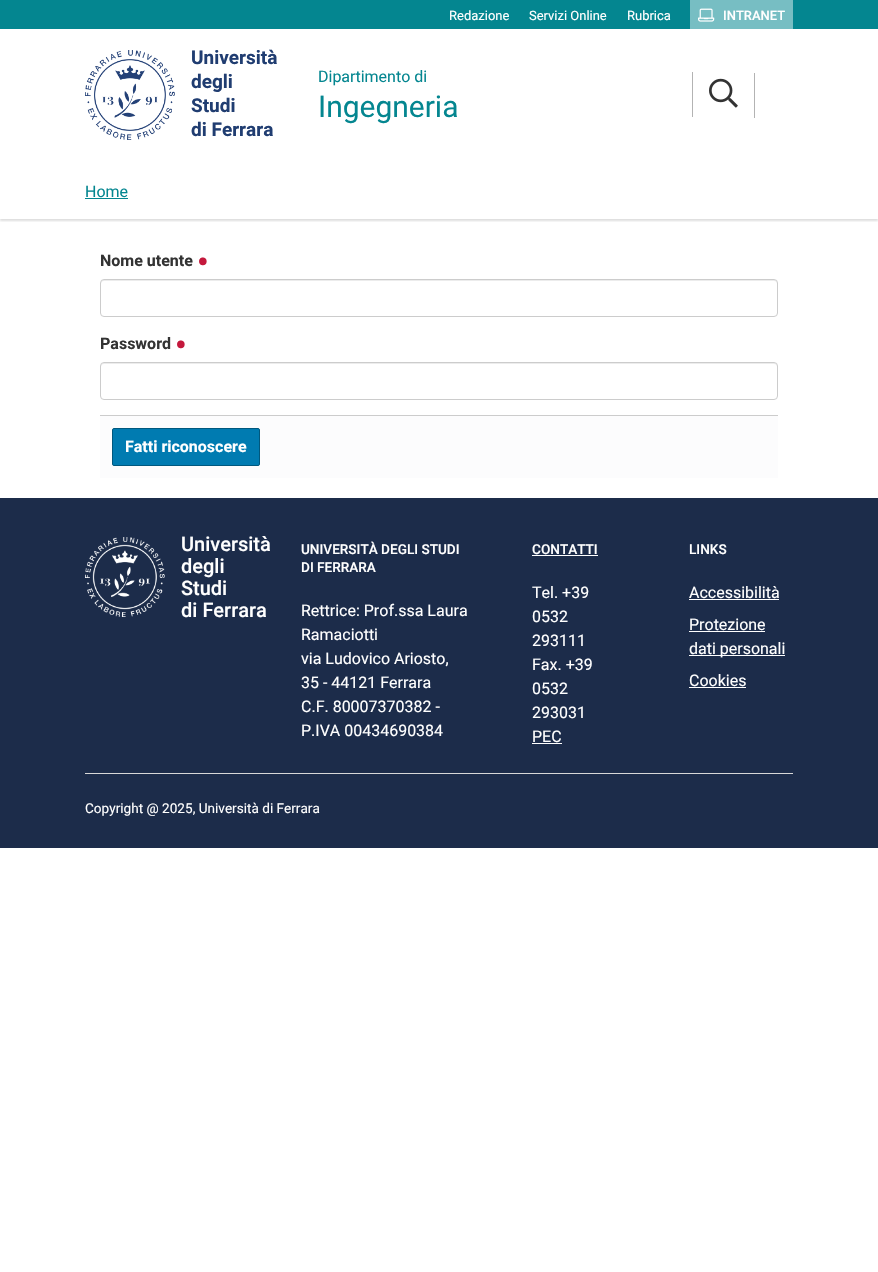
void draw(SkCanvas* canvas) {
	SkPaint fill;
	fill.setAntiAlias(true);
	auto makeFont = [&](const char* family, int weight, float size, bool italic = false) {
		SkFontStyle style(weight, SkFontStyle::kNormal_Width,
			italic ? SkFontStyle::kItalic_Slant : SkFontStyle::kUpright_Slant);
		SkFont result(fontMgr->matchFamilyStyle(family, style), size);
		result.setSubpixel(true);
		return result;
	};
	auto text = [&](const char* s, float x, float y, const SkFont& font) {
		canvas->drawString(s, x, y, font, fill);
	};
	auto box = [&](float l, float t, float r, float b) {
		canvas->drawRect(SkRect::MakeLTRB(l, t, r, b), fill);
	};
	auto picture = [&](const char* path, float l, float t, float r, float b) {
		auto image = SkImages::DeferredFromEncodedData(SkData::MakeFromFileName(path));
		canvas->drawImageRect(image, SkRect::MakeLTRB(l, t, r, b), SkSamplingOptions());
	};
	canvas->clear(0xFFFFFFFF);
	fill.setColor(0xFF048690);
	box(0, 0, 878, 29);
	fill.setColor(0xFF77BEC3);
	box(690, 0, 793, 29);
	picture("image0.png", 698, 8, 715, 22);
	picture("image1.png", 85, 50, 175, 140);
	fill.setColor(0xFFB3B3B3);
	box(692, 72, 693, 117);
	picture("image2.png", 709, 78, 738, 108);
	box(754, 73, 755, 118);
	canvas->save();
	canvas->clipRect(SkRect::MakeLTRB(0, 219, 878, 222));
	fill.setColor(0x21000000);
	fill.setMaskFilter(SkMaskFilter::MakeBlur(kNormal_SkBlurStyle, 1));
	canvas->drawRect(SkRect::MakeLTRB(0, 167, 878, 221), fill);
	fill.setMaskFilter(nullptr);
	canvas->restore();
	fill.setColor(0xFF048690);
	box(85, 198, 128, 199);
	fill.setColor(0xFFECECEC);
	canvas->drawPath(SkPathBuilder().moveTo(104, 281).lineTo(774, 281).cubicTo(776, 281, 777, 282, 777, 284).lineTo(777, 283).cubicTo(777, 281, 776, 280, 774, 280).lineTo(104, 280).cubicTo(102, 280, 101, 281, 101, 283).lineTo(101, 284).cubicTo(101, 282, 102, 281, 104, 281).close().detach(), fill);
	fill.setStyle(SkPaint::kStroke_Style);
	fill.setStrokeWidth(1);
	fill.setColor(0xFFCCCCCC);
	canvas->drawRoundRect(SkRect::MakeLTRB(100.5f, 279.5f, 777.5f, 316.5f), 3.5f, 3.5f, fill);
	fill.setStyle(SkPaint::kFill_Style);
	fill.setColor(0xFFECECEC);
	canvas->drawPath(SkPathBuilder().moveTo(104, 364).lineTo(774, 364).cubicTo(776, 364, 777, 365, 777, 367).lineTo(777, 366).cubicTo(777, 364, 776, 363, 774, 363).lineTo(104, 363).cubicTo(102, 363, 101, 364, 101, 366).lineTo(101, 367).cubicTo(101, 365, 102, 364, 104, 364).close().detach(), fill);
	fill.setStyle(SkPaint::kStroke_Style);
	fill.setColor(0xFFCCCCCC);
	canvas->drawRoundRect(SkRect::MakeLTRB(100.5f, 362.5f, 777.5f, 399.5f), 3.5f, 3.5f, fill);
	fill.setStyle(SkPaint::kFill_Style);
	fill.setColor(0xFFFCFCFD);
	box(100, 416, 778, 478);
	fill.setColor(0xFFCCCCCC);
	box(100, 415, 778, 416);
	fill.setColor(0xFF007BB1);
	canvas->drawRoundRect(SkRect::MakeLTRB(112.5f, 428.5f, 259.5f, 465.5f), 1.5f, 1.5f, fill);
	fill.setStyle(SkPaint::kStroke_Style);
	fill.setColor(0xFF00587E);
	canvas->drawRoundRect(SkRect::MakeLTRB(112.5f, 428.5f, 259.5f, 465.5f), 1.5f, 1.5f, fill);
	fill.setStyle(SkPaint::kFill_Style);
	fill.setColor(0xFF1C2C4A);
	box(0, 498, 878, 848);
	picture("image3.png", 85, 537, 165, 617);
	fill.setColor(0xFFFFFFFF);
	box(532, 555, 598, 556);
	box(532, 743, 562, 744);
	box(689, 599, 779, 600);
	box(689, 631, 765, 632);
	box(689, 655, 785, 656);
	box(689, 687, 746, 688);
	fill.setColor(0xFFD8D8D8);
	box(85, 773, 793, 774);
	auto font1 = makeFont("Roboto", 400, 13);
	fill.setColor(0xFFFFFFFF);
	text("Redazione", 449, 20, font1);
	text("Servizi Online", 529, 20, font1);
	text("Rubrica", 627, 20, font1);
	auto font2 = makeFont("Roboto", 500, 13);
	text("INTRANET", 723, 20, font2);
	auto font3 = makeFont("Roboto", 700, 19);
	fill.setColor(0xFF203D71);
	text("Università", 191, 64, font3);
	text("degli", 191, 88, font3);
	text("Studi", 191, 112, font3);
	text("di Ferrara", 191, 136, font3);
	auto font4 = makeFont("Roboto", 400, 16);
	fill.setColor(0xFF048690);
	text("Dipartimento di", 318, 82, font4);
	auto font5 = makeFont("Roboto", 400, 30);
	text("Ingegneria", 318, 117, font5);
	text("Home", 85, 197, font4);
	auto font6 = makeFont("Roboto", 700, 16);
	fill.setColor(0xFF333333);
	text("Nome utente", 100, 266, font6);
	auto font7 = makeFont("Roboto", 700, 32);
	fill.setColor(0xFFC4183C);
	text("•", 197, 273, font7);
	fill.setColor(0xFF333333);
	text("Password", 100, 349, font6);
	fill.setColor(0xFFC4183C);
	text("•", 175, 356, font7);
	fill.setColor(0xFFFFFFFF);
	text("Fatti riconoscere", 125, 452, font6);
	auto font8 = makeFont("Roboto", 500, 20);
	text("Università", 181, 551, font8);
	text("degli", 181, 573, font8);
	text("Studi", 181, 595, font8);
	text("di Ferrara", 181, 617, font8);
	auto font9 = makeFont("Roboto", 500, 13.6f);
	text("UNIVERSITÀ DEGLI STUDI", 301, 554, font9);
	text("DI FERRARA", 301, 572, font9);
	text("Rettrice: Prof.ssa Laura", 301, 616, font4);
	text("Ramaciotti", 301, 640, font4);
	text("via Ludovico Ariosto,", 301, 664, font4);
	text("35 - 44121 Ferrara", 301, 688, font4);
	text("C.F. 80007370382 -", 301, 712, font4);
	text("P.IVA 00434690384", 301, 736, font4);
	text("CONTATTI", 532, 554, font9);
	text("Tel. +39", 532, 598, font4);
	text("0532", 532, 622, font4);
	text("293111", 532, 646, font4);
	text("Fax. +39", 532, 670, font4);
	text("0532", 532, 694, font4);
	text("293031", 532, 718, font4);
	text("PEC", 532, 742, font4);
	text("LINKS", 689, 554, font9);
	text("Accessibilità", 689, 598, font4);
	text("Protezione", 689, 630, font4);
	text("dati personali", 689, 654, font4);
	text("Cookies", 689, 686, font4);
	auto font10 = makeFont("Roboto", 400, 13.6f);
	text("Copyright @ 2025, Università di Ferrara", 85, 813, font10);
}
